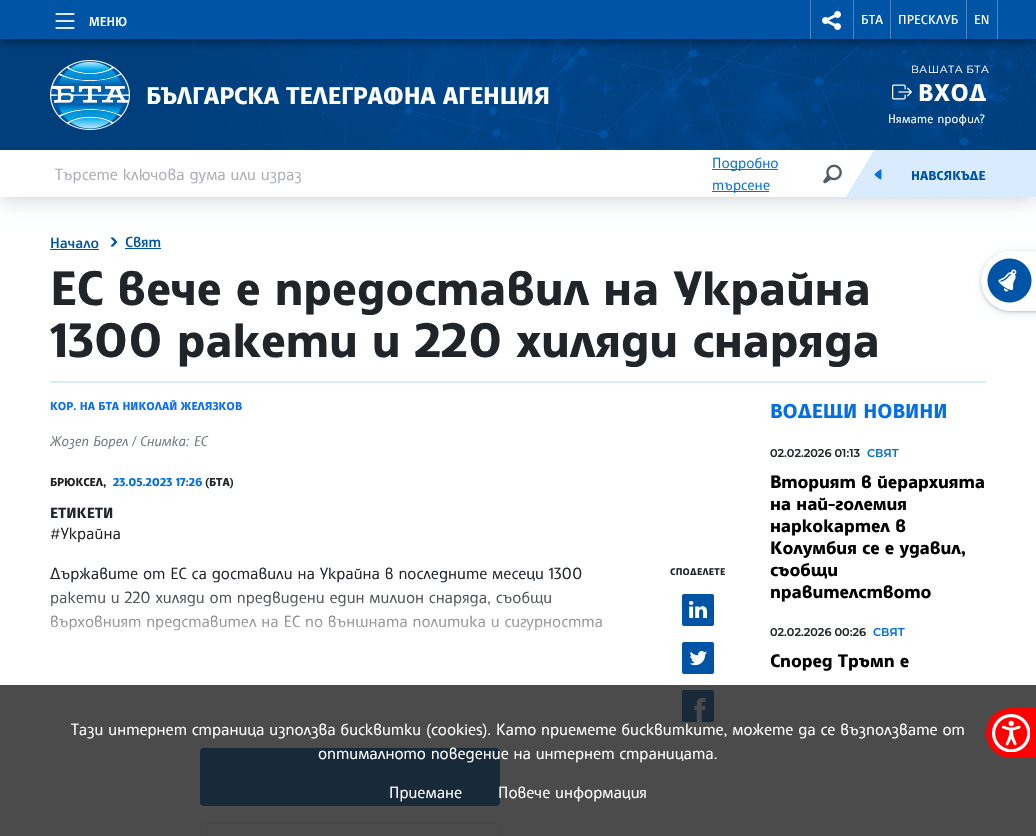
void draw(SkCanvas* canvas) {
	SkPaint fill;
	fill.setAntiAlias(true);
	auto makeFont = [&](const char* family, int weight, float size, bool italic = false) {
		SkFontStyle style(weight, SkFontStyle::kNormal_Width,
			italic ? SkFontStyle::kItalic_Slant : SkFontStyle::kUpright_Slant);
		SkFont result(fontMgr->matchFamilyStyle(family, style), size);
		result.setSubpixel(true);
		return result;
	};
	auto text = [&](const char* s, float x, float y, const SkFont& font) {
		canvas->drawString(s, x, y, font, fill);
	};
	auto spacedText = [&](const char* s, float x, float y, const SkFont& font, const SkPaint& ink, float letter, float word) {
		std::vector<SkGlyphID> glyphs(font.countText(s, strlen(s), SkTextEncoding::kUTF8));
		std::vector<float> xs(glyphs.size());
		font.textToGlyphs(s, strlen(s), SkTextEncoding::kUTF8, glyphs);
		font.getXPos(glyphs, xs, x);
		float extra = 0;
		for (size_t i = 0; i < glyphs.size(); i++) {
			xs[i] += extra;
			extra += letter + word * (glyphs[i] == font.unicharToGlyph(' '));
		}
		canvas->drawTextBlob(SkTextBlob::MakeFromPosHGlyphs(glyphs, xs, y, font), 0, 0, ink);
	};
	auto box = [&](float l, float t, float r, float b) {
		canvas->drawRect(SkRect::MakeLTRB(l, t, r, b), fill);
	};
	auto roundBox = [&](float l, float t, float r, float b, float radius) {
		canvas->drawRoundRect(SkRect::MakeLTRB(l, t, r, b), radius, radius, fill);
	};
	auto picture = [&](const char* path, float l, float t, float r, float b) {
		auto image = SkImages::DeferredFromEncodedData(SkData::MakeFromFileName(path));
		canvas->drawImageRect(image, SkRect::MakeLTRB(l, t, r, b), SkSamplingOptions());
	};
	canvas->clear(0xFFFFFFFF);
	fill.setColor(0x3300162E);
	fill.setMaskFilter(SkMaskFilter::MakeBlur(kNormal_SkBlurStyle, 10));
	canvas->drawRect(SkRect::MakeLTRB(0, 2, 1036, 199), fill);
	fill.setMaskFilter(nullptr);
	fill.setColor(0xFF013F7C);
	box(0, 39, 6, 150);
	picture("image2.png", 6, 39, 1036, 150);
	fill.setColor(0x80000000);
	fill.setMaskFilter(SkMaskFilter::MakeBlur(kNormal_SkBlurStyle, 5));
	canvas->drawRect(SkRect::MakeLTRB(0, 2, 1036, 41), fill);
	fill.setMaskFilter(nullptr);
	fill.setColor(0xFF0054A6);
	box(0, 0, 1036, 39);
	picture("image0.png", 55, 13, 75, 29);
	fill.setColor(0xFF4D87C1);
	box(853, 0, 854, 39);
	box(810, 0, 811, 39);
	picture("image1.png", 822, 11, 841, 30);
	box(890, 0, 891, 39);
	box(966, 0, 967, 39);
	box(997, 0, 998, 39);
	picture("image3.png", 50, 60, 130, 130);
	picture("image4.png", 892, 84, 912, 100);
	fill.setColor(0xFFFFFFFF);
	box(0, 150, 845, 197);
	fill.setColor(0xFFD9EBFE);
	box(875, 150, 1036, 197);
	fill.setColor(0xFF026FE3);
	box(712, 169, 778, 170);
	box(712, 191, 769, 192);
	picture("image5.png", 823, 164, 842, 184);
	{
		const SkColor colors[] = {0xFFFFFFFF, 0xFFD9EBFE};
		const float stops[] = {0.5f, 0.5f};
		const SkPoint ends[] = {{839, 161}, {881, 186}};
		fill.setShader(SkGradientShader::MakeLinear(ends, colors, stops, 2, SkTileMode::kClamp));
		fill.setAlpha(255);
	}
	box(845, 150, 875, 197);
	picture("image6.png", 874, 169, 882, 180);
	fill.setShader(nullptr);
	fill.setColor(0xFF0054A6);
	box(50, 249, 99, 250);
	picture("image7.png", 110, 237, 118, 247);
	box(125, 248, 161, 249);
	fill.setColor(0xFFD9EBFE);
	box(50, 381, 986, 383);
	fill.setColor(0xFF0054A6);
	roundBox(200, 748, 500, 806, 4);
	fill.setStyle(SkPaint::kStroke_Style);
	fill.setStrokeWidth(2);
	fill.setColor(0xFFECF5FE);
	canvas->drawRoundRect(SkRect::MakeLTRB(201, 823, 499, 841), 3, 3, fill);
	picture("image8.png", 682, 594, 714, 626);
	picture("image9.png", 682, 642, 714, 674);
	picture("image10.png", 682, 690, 714, 722);
	fill.setStyle(SkPaint::kFill_Style);
	fill.setColor(0x1A00162E);
	fill.setMaskFilter(SkMaskFilter::MakeBlur(kNormal_SkBlurStyle, 5));
	canvas->drawRoundRect(SkRect::MakeLTRB(981, 253, 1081, 313), 30, 30, fill);
	fill.setMaskFilter(nullptr);
	fill.setColor(0x3300162E);
	fill.setMaskFilter(SkMaskFilter::MakeBlur(kNormal_SkBlurStyle, 1.5f));
	canvas->drawRoundRect(SkRect::MakeLTRB(981, 252, 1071, 312), 30, 30, fill);
	fill.setMaskFilter(nullptr);
	fill.setColor(0xFFFFFFFF);
	canvas->drawPath(SkPathBuilder().moveTo(1011, 251).lineTo(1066, 251).lineTo(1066, 311).lineTo(1011, 311).cubicTo(994.5f, 311, 981, 297.5f, 981, 281).cubicTo(981, 264.5f, 994.5f, 251, 1011, 251).close().detach(), fill);
	picture("image11.png", 987, 258, 1032, 303);
	fill.setColor(0xCC1E1E1E);
	box(0, 685, 1036, 836);
	fill.setColor(0xFFFF0000);
	canvas->drawPath(SkPathBuilder().moveTo(1011, 708).lineTo(1036, 708).lineTo(1036, 758).lineTo(1011, 758).cubicTo(997, 758, 986, 747, 986, 733).cubicTo(986, 719, 997, 708, 1011, 708).close().detach(), fill);
	picture("image12.png", 992, 714, 1030, 752);
	auto font1 = makeFont("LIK", 600, 12.75f);
	fill.setColor(0xFFFFFFFF);
	text("МЕНЮ", 89, 26, font1);
	auto font2 = makeFont("LIK", 500, 12.75f);
	spacedText("БТА", 861, 24, font2, fill, 0.25f, 0);
	spacedText("ПРЕСКЛУБ", 898, 24, font2, fill, 0.25f, 0);
	spacedText("EN", 974, 24, font2, fill, 0.25f, 0);
	auto font3 = makeFont("LIK", 800, 24);
	spacedText("БЪЛГАРСКА ТЕЛЕГРАФНА АГЕНЦИЯ", 146, 104, font3, fill, -0.2f, 0);
	auto font4 = makeFont("Montserrat", 400, 10.5f);
	spacedText("ВАШАТА БТА", 911, 73, font4, fill, 0.5f, 0);
	spacedText("ВХОД", 918, 101, font3, fill, 0.5f, 0);
	auto font5 = makeFont("LIK", 400, 12);
	spacedText("Нямате профил?", 888, 123, font5, fill, 0.25f, 0);
	auto font6 = makeFont("LIK", 400, 16);
	fill.setColor(0xFFABAEB2);
	text("Търсете ключова дума или израз", 55, 180, font6);
	auto font7 = makeFont("LIK", 400, 14.5f);
	fill.setColor(0xFF026FE3);
	text("Подробно", 712, 168, font7);
	text("търсене", 712, 190, font7);
	auto font8 = makeFont("LIK", 800, 12.75f);
	fill.setColor(0xFF0054A6);
	text("НАВСЯКЪДЕ", 911, 180, font8);
	auto font9 = makeFont("LIK", 600, 14.5f);
	text("Начало", 50, 248, font9);
	text("Свят", 125, 247, font9);
	auto font10 = makeFont("LIK", 800, 48);
	fill.setColor(0xFF212529);
	spacedText("ЕС вече е предоставил на Украйна", 50, 305, font10, fill, -0.3f, 0);
	spacedText("1300 ракети и 220 хиляди снаряда", 50, 357, font10, fill, -0.3f, 0);
	auto font11 = makeFont("LIK", 800, 11.25f);
	fill.setColor(0xFF0D6EFD);
	text("КОР. НА БТА НИКОЛАЙ ЖЕЛЯЗКОВ", 50, 410, font11);
	auto font12 = makeFont("LIK", 400, 14, true);
	fill.setColor(0xFF6C757D);
	text("Жозеп Борел / Снимка: ЕС", 50, 446, font12);
	fill.setColor(0xFF212121);
	text("БРЮКСЕЛ,", 50, 486, font11);
	fill.setColor(0xFF026FE3);
	text("23.05.2023 17:26", 113, 486, font11);
	fill.setColor(0xFF212529);
	text("(БТА)", 205, 486, font11);
	auto font13 = makeFont("LIK", 800, 14.5f);
	text("ЕТИКЕТИ", 50, 518, font13);
	fill.setColor(0xFF212121);
	text("#Украйна", 50, 539, font6);
	fill.setColor(0xFF212529);
	text("Държавите от ЕС са доставили на Украйна в последните месеци 1300", 50, 579, font6);
	text("ракети и 220 хиляди от предвидени един милион снаряда, съобщи", 50, 603, font6);
	text("върховният представител на ЕС по външната политика и сигурността", 50, 627, font6);
	{
		const SkColor colors[] = {0x00FFFFFF, 0xFFFFFFFF};
		const float stops[] = {0, 0.8f};
		const SkPoint ends[] = {{350, 581}, {350, 681}};
		fill.setShader(SkGradientShader::MakeLinear(ends, colors, stops, 2, SkTileMode::kClamp));
		fill.setAlpha(255);
	}
	box(51, 591, 602, 631);
	auto font14 = makeFont("LIK", 800, 9.5f);
	fill.setShader(nullptr);
	fill.setColor(0xFF212529);
	spacedText("СПОДЕЛЕТЕ", 670, 575, font14, fill, 0.25f, 0);
	auto font15 = makeFont("LIK", 800, 20);
	fill.setColor(0xFF026FE3);
	text("ВОДЕЩИ НОВИНИ", 770, 418, font15);
	auto font16 = makeFont("Montserrat", 600, 11.25f);
	fill.setColor(0xFF212529);
	text("02.02.2026 01:13", 770, 457, font16);
	fill.setColor(0xFF026FE3);
	text("СВЯТ", 867, 457, font16);
	auto font17 = makeFont("LIK", 800, 18);
	fill.setColor(0xFF000000);
	spacedText("Вторият в йерархията", 770, 488, font17, fill, -0.1f, 0);
	spacedText("на най-големия", 770, 510, font17, fill, -0.1f, 0);
	spacedText("наркокартел в", 770, 532, font17, fill, -0.1f, 0);
	spacedText("Колумбия се е удавил,", 770, 554, font17, fill, -0.1f, 0);
	spacedText("съобщи", 770, 576, font17, fill, -0.1f, 0);
	spacedText("правителството", 770, 598, font17, fill, -0.1f, 0);
	fill.setColor(0xFF212529);
	text("02.02.2026 00:26", 770, 636, font16);
	fill.setColor(0xFF026FE3);
	text("СВЯТ", 873, 636, font16);
	fill.setColor(0xFF000000);
	spacedText("Според Тръмп е", 770, 667, font17, fill, -0.1f, 0);
	fill.setColor(0xFFFFFFFF);
	text("Тази интернет страница използва бисквитки (cookies). Като приемете бисквитките, можете да се възползвате от", 71, 735, font6);
	text("оптималното поведение на интернет страницата.", 318, 759, font6);
	text("Приемане", 389, 798, font6);
	text("Повече информация", 498, 798, font6);
}
